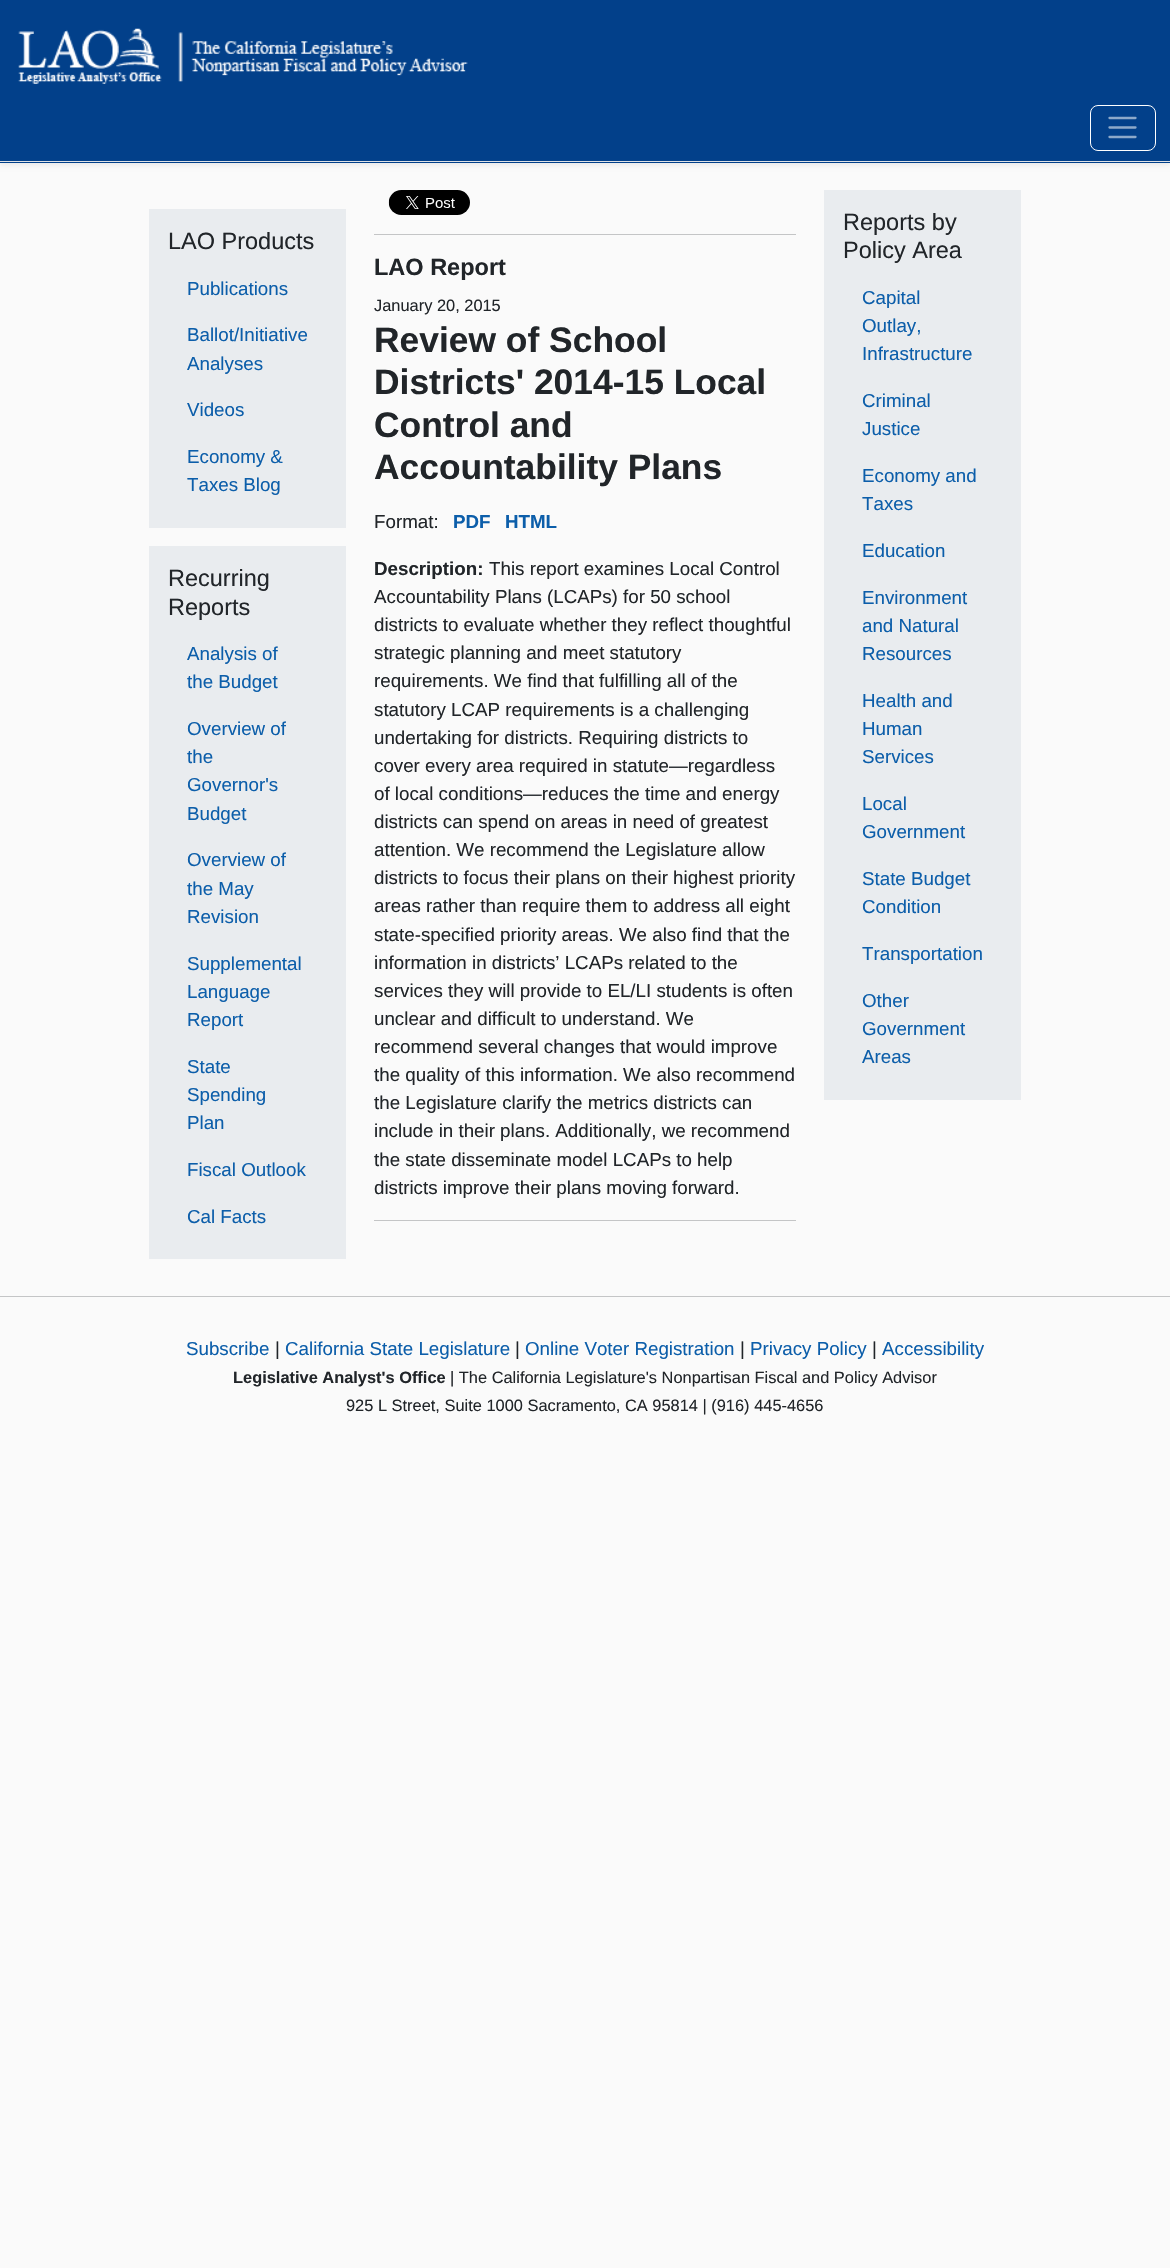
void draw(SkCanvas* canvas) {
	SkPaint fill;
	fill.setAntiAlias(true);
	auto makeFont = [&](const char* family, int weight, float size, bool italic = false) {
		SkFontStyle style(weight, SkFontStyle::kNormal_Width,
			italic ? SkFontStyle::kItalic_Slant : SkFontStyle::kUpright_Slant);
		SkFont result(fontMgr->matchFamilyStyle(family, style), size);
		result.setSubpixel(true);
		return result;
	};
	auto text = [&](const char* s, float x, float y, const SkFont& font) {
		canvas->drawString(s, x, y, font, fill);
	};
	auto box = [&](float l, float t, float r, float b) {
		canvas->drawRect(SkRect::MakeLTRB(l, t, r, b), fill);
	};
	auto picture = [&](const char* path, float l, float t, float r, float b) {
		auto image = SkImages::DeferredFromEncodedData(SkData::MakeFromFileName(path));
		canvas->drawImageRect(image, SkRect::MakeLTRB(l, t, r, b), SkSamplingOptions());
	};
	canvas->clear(0xFFFAFAFA);
	fill.setColor(0x12000000);
	fill.setMaskFilter(SkMaskFilter::MakeBlur(kNormal_SkBlurStyle, 2.5f));
	canvas->drawRect(SkRect::MakeLTRB(0, 3, 1170, 165), fill);
	fill.setMaskFilter(nullptr);
	fill.setColor(0xFF02408A);
	box(0, 0, 1170, 163);
	fill.setColor(0xFFDEE2E6);
	box(0, 161, 1170, 162);
	picture("image0.png", 18, 28, 468, 84);
	fill.setStyle(SkPaint::kStroke_Style);
	fill.setStrokeWidth(1);
	fill.setColor(0xFFFFFFFF);
	canvas->drawRoundRect(SkRect::MakeLTRB(1090.5f, 105.5f, 1155.5f, 150.5f), 7.5f, 7.5f, fill);
	fill.setStrokeWidth(2.3f);
	fill.setStrokeCap(SkPaint::kRound_Cap);
	fill.setColor(0xFF8DA9CA);
	canvas->drawPath(SkPathBuilder().moveTo(1109.5f, 118).lineTo(1135.5f, 118).moveTo(1109.5f, 127.5f).lineTo(1135.5f, 127.5f).moveTo(1109.5f, 137).lineTo(1135.5f, 137).detach(), fill);
	fill.setStyle(SkPaint::kFill_Style);
	fill.setColor(0xFFE9ECEF);
	box(149, 209, 346, 528);
	box(149, 546, 346, 1259);
	picture("image1.png", 388, 190, 470, 215);
	fill.setColor(0xFFC4C5C6);
	box(374, 234, 796, 235);
	box(374, 1220, 796, 1221);
	fill.setColor(0xFFE9ECEF);
	box(824, 190, 1021, 1100);
	fill.setColor(0xFFC4C5C6);
	box(0, 1296, 1170, 1297);
	auto font1 = makeFont("Liberation Sans", 400, 23.5f);
	fill.setColor(0xFF212529);
	text("LAO Products", 168, 249, font1);
	auto font2 = makeFont("Liberation Sans", 400, 18.75f);
	fill.setColor(0xFF0C5EAA);
	text("Publications", 187, 295, font2);
	text("Ballot/Initiative", 187, 341, font2);
	text("Analyses", 187, 370, font2);
	text("Videos", 187, 416, font2);
	text("Economy &", 187, 463, font2);
	text("Taxes Blog", 187, 491, font2);
	fill.setColor(0xFF212529);
	text("Recurring", 168, 586, font1);
	text("Reports", 168, 615, font1);
	fill.setColor(0xFF0C5EAA);
	text("Analysis of", 187, 660, font2);
	text("the Budget", 187, 688, font2);
	text("Overview of", 187, 735, font2);
	text("the", 187, 763, font2);
	text("Governor's", 187, 791, font2);
	text("Budget", 187, 820, font2);
	text("Overview of", 187, 866, font2);
	text("the May", 187, 895, font2);
	text("Revision", 187, 923, font2);
	text("Supplemental", 187, 970, font2);
	text("Language", 187, 998, font2);
	text("Report", 187, 1026, font2);
	text("State", 187, 1073, font2);
	text("Spending", 187, 1101, font2);
	text("Plan", 187, 1129, font2);
	text("Fiscal Outlook", 187, 1176, font2);
	text("Cal Facts", 187, 1223, font2);
	auto font3 = makeFont("Liberation Sans", 700, 23.5f);
	fill.setColor(0xFF212529);
	text("LAO Report", 374, 275, font3);
	auto font4 = makeFont("Liberation Sans", 400, 16.4f);
	text("January 20, 2015", 374, 311, font4);
	auto font5 = makeFont("Liberation Sans", 700, 35.4f);
	text("Review of School", 374, 352, font5);
	text("Districts' 2014-15 Local", 374, 394, font5);
	text("Control and", 374, 437, font5);
	text("Accountability Plans", 374, 479, font5);
	text("Format:", 374, 528, font2);
	auto font6 = makeFont("Liberation Sans", 700, 18.75f);
	fill.setColor(0xFF0C5EAA);
	text("PDF", 453, 528, font6);
	text("HTML", 505, 528, font6);
	fill.setColor(0xFF212529);
	text("Description:", 374, 575, font6);
	text("This report examines Local Control", 489, 575, font2);
	text("Accountability Plans (LCAPs) for 50 school", 374, 603, font2);
	text("districts to evaluate whether they reflect thoughtful", 374, 631, font2);
	text("strategic planning and meet statutory", 374, 659, font2);
	text("requirements. We find that fulfilling all of the", 374, 687, font2);
	text("statutory LCAP requirements is a challenging", 374, 716, font2);
	text("undertaking for districts. Requiring districts to", 374, 744, font2);
	text("cover every area required in statute—regardless", 374, 772, font2);
	text("of local conditions—reduces the time and energy", 374, 800, font2);
	text("districts can spend on areas in need of greatest", 374, 828, font2);
	text("attention. We recommend the Legislature allow", 374, 856, font2);
	text("districts to focus their plans on their highest priority", 374, 884, font2);
	text("areas rather than require them to address all eight", 374, 912, font2);
	text("state-specified priority areas. We also find that the", 374, 941, font2);
	text("information in districts’ LCAPs related to the", 374, 969, font2);
	text("services they will provide to EL/LI students is often", 374, 997, font2);
	text("unclear and difficult to understand. We", 374, 1025, font2);
	text("recommend several changes that would improve", 374, 1053, font2);
	text("the quality of this information. We also recommend", 374, 1081, font2);
	text("the Legislature clarify the metrics districts can", 374, 1109, font2);
	text("include in their plans. Additionally, we recommend", 374, 1137, font2);
	text("the state disseminate model LCAPs to help", 374, 1166, font2);
	text("districts improve their plans moving forward.", 374, 1194, font2);
	text("Reports by", 843, 230, font1);
	text("Policy Area", 843, 258, font1);
	fill.setColor(0xFF0C5EAA);
	text("Capital", 862, 304, font2);
	text("Outlay,", 862, 332, font2);
	text("Infrastructure", 862, 360, font2);
	text("Criminal", 862, 407, font2);
	text("Justice", 862, 435, font2);
	text("Economy and", 862, 482, font2);
	text("Taxes", 862, 510, font2);
	text("Education", 862, 557, font2);
	text("Environment", 862, 604, font2);
	text("and Natural", 862, 632, font2);
	text("Resources", 862, 660, font2);
	text("Health and", 862, 707, font2);
	text("Human", 862, 735, font2);
	text("Services", 862, 763, font2);
	text("Local", 862, 810, font2);
	text("Government", 862, 838, font2);
	text("State Budget", 862, 885, font2);
	text("Condition", 862, 913, font2);
	text("Transportation", 862, 960, font2);
	text("Other", 862, 1007, font2);
	text("Government", 862, 1035, font2);
	text("Areas", 862, 1063, font2);
	text("Subscribe", 186, 1355, font2);
	fill.setColor(0xFF212529);
	text("|", 275, 1355, font2);
	fill.setColor(0xFF0C5EAA);
	text("California State Legislature", 285, 1355, font2);
	fill.setColor(0xFF212529);
	text("|", 515, 1355, font2);
	fill.setColor(0xFF0C5EAA);
	text("Online Voter Registration", 525, 1355, font2);
	fill.setColor(0xFF212529);
	text("|", 740, 1355, font2);
	fill.setColor(0xFF0C5EAA);
	text("Privacy Policy", 750, 1355, font2);
	fill.setColor(0xFF212529);
	text("|", 872, 1355, font2);
	fill.setColor(0xFF0C5EAA);
	text("Accessibility", 882, 1355, font2);
	auto font7 = makeFont("Liberation Sans", 700, 16.4f);
	fill.setColor(0xFF212529);
	text("Legislative Analyst's Office", 233, 1383, font7);
	text("| The California Legislature's Nonpartisan Fiscal and Policy Advisor", 450, 1383, font4);
	text("925 L Street, Suite 1000 Sacramento, CA 95814 | (916) 445-4656", 346, 1411, font4);
}
